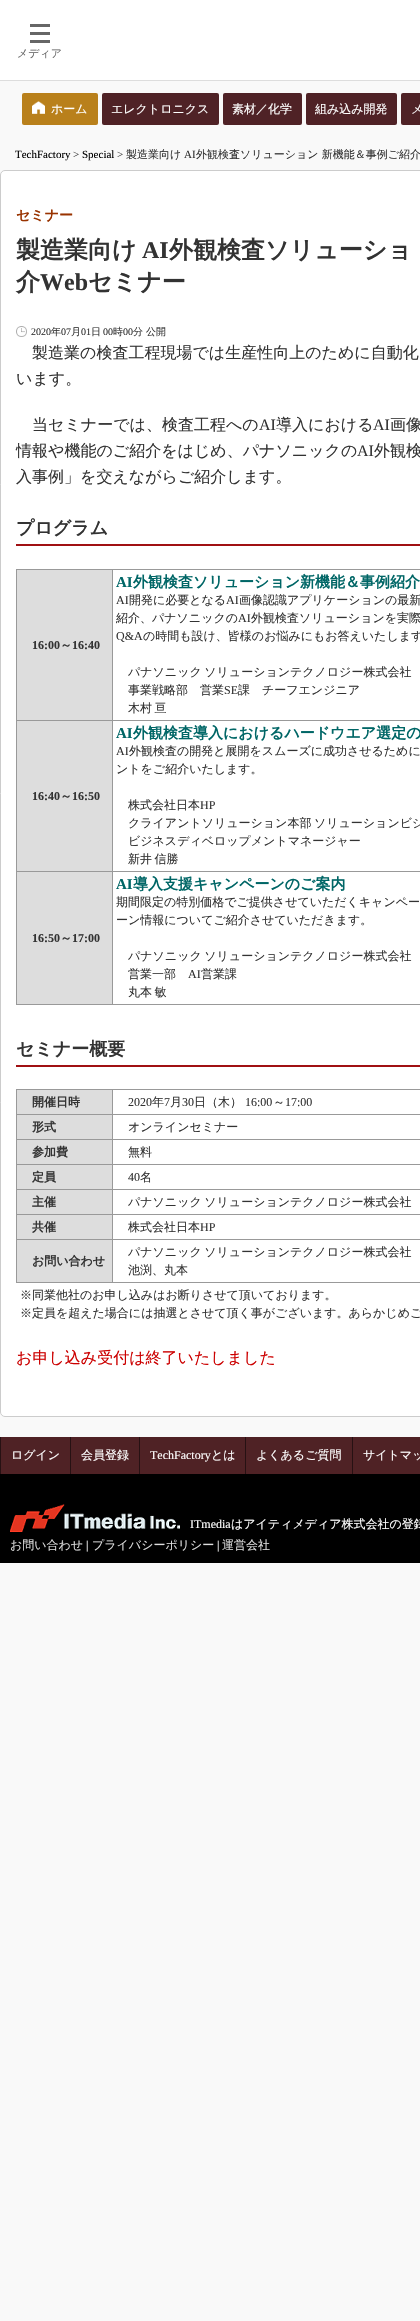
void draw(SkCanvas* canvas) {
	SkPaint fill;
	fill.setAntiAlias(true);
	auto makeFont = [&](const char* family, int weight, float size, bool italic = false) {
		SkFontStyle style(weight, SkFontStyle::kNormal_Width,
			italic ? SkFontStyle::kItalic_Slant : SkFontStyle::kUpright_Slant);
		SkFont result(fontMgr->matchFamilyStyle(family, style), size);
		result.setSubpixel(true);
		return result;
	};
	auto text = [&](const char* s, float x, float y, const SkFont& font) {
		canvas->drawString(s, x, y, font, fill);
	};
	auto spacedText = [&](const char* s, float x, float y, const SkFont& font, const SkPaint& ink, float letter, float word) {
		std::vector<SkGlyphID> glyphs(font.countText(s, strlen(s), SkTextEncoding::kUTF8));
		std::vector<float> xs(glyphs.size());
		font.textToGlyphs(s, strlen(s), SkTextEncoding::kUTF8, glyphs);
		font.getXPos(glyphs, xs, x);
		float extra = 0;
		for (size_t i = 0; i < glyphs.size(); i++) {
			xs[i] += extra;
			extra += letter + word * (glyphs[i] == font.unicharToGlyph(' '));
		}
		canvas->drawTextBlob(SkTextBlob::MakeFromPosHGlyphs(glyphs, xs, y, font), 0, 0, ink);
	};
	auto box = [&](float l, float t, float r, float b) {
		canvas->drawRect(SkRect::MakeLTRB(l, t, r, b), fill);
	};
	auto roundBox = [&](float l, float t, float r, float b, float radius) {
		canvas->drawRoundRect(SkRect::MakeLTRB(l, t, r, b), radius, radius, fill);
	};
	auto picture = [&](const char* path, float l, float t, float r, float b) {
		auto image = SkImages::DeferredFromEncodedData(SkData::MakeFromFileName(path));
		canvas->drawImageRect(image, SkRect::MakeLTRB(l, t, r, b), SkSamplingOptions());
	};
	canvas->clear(0xFFF9F9F9);
	fill.setColor(0xFFFFFFFF);
	box(0, 0, 420, 80);
	fill.setColor(0xFFDDDDDD);
	box(0, 80, 420, 81);
	fill.setColor(0xFF666666);
	box(30, 24, 50, 27);
	box(30, 32, 50, 35);
	box(30, 40, 50, 43);
	fill.setColor(0xFFB9801B);
	roundBox(22, 93, 98, 125, 2);
	picture("image0.png", 32, 101, 45, 114);
	fill.setColor(0xFF4F2226);
	roundBox(102, 93, 219, 125, 2);
	roundBox(223, 93, 302, 125, 2);
	roundBox(306, 93, 397, 125, 2);
	roundBox(401, 93, 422, 125, 2);
	fill.setColor(0xFFFFFFFF);
	canvas->drawRoundRect(SkRect::MakeLTRB(0.5f, 170.5f, 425.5f, 1416.5f), 4.5f, 4.5f, fill);
	fill.setStyle(SkPaint::kStroke_Style);
	fill.setStrokeWidth(1);
	fill.setColor(0xFFCCCCCC);
	canvas->drawRoundRect(SkRect::MakeLTRB(0.5f, 170.5f, 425.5f, 1416.5f), 4.5f, 4.5f, fill);
	picture("image1.png", 16, 326, 27, 337);
	fill.setStyle(SkPaint::kFill_Style);
	fill.setColor(0xFFA01013);
	box(16, 544, 420, 546);
	fill.setColor(0xFFDDDDDD);
	box(17, 570, 112, 720);
	fill.setColor(0xFF999999);
	box(112, 569, 420, 570);
	box(112, 720, 420, 721);
	box(112, 871, 420, 872);
	box(112, 1004, 420, 1005);
	box(112, 871, 113, 1005);
	box(16, 871, 113, 872);
	box(112, 720, 113, 872);
	box(16, 720, 113, 721);
	box(112, 569, 113, 721);
	box(16, 569, 113, 570);
	box(16, 1004, 113, 1005);
	box(16, 871, 17, 1005);
	box(16, 720, 17, 872);
	box(16, 569, 17, 721);
	fill.setColor(0xFFDDDDDD);
	box(17, 721, 112, 871);
	box(17, 872, 112, 1004);
	fill.setColor(0xFFA01013);
	box(16, 1065, 420, 1067);
	fill.setColor(0xFFDDDDDD);
	box(17, 1090, 112, 1114);
	fill.setColor(0xFF999999);
	box(112, 1089, 420, 1090);
	box(112, 1114, 420, 1115);
	box(112, 1139, 420, 1140);
	box(112, 1164, 420, 1165);
	box(112, 1189, 420, 1190);
	box(112, 1214, 420, 1215);
	box(112, 1239, 420, 1240);
	box(112, 1282, 420, 1283);
	box(112, 1239, 113, 1283);
	box(16, 1239, 113, 1240);
	box(112, 1214, 113, 1240);
	box(16, 1214, 113, 1215);
	box(112, 1189, 113, 1215);
	box(16, 1189, 113, 1190);
	box(112, 1164, 113, 1190);
	box(16, 1164, 113, 1165);
	box(112, 1139, 113, 1165);
	box(16, 1139, 113, 1140);
	box(112, 1114, 113, 1140);
	box(16, 1114, 113, 1115);
	box(112, 1089, 113, 1115);
	box(16, 1089, 113, 1090);
	box(16, 1282, 113, 1283);
	box(16, 1239, 17, 1283);
	box(16, 1214, 17, 1240);
	box(16, 1189, 17, 1215);
	box(16, 1164, 17, 1190);
	box(16, 1139, 17, 1165);
	box(16, 1114, 17, 1140);
	box(16, 1089, 17, 1115);
	fill.setColor(0xFFDDDDDD);
	box(17, 1115, 112, 1139);
	box(17, 1140, 112, 1164);
	box(17, 1165, 112, 1189);
	box(17, 1190, 112, 1214);
	box(17, 1215, 112, 1239);
	box(17, 1240, 112, 1282);
	fill.setColor(0xFF4F2225);
	box(1, 1437, 70, 1474);
	fill.setColor(0xFF271113);
	box(0, 1437, 1, 1474);
	fill.setColor(0xFF4F2225);
	box(71, 1437, 139, 1474);
	fill.setColor(0xFF271113);
	box(70, 1437, 71, 1474);
	fill.setColor(0xFF4F2225);
	box(140, 1437, 245, 1474);
	fill.setColor(0xFF271113);
	box(139, 1437, 140, 1474);
	fill.setColor(0xFF4F2225);
	box(246, 1437, 352, 1474);
	fill.setColor(0xFF271113);
	box(245, 1437, 246, 1474);
	fill.setColor(0xFF4F2225);
	box(353, 1437, 420, 1474);
	fill.setColor(0xFF271113);
	box(352, 1437, 353, 1474);
	fill.setColor(0xFF000000);
	box(0, 1474, 420, 1563);
	picture("image2.png", 10, 1504, 180, 1532);
	auto font1 = makeFont("WenQuanYi Zen Hei", 500, 11);
	fill.setColor(0xFF666666);
	text("メディア", 17, 57, font1);
	auto font2 = makeFont("WenQuanYi Zen Hei", 500, 12);
	fill.setColor(0xFFFFFFFF);
	text("ホーム", 51, 113, font2);
	text("エレクトロニクス", 111, 113, font2);
	text("素材／化学", 232, 113, font2);
	text("組み込み開発", 315, 113, font2);
	text("メ", 411, 113, font2);
	auto font3 = makeFont("Liberation Serif", 400, 11);
	fill.setColor(0xFF000000);
	text("TechFactory", 15, 158, font3);
	fill.setColor(0xFF333333);
	text(">", 73, 158, font3);
	fill.setColor(0xFF000000);
	text("Special", 82, 158, font3);
	fill.setColor(0xFF333333);
	text(">", 117, 158, font3);
	text("製造業向け", 126, 158, font1);
	text("AI", 184, 158, font3);
	text("外観検査ソリューション 新機能＆事例ご紹介", 196, 158, font1);
	auto font4 = makeFont("WenQuanYi Zen Hei", 700, 14);
	fill.setColor(0xFF993300);
	text("セミナー", 16, 220, font4);
	auto font5 = makeFont("WenQuanYi Zen Hei", 700, 24);
	fill.setColor(0xFF333333);
	text("製造業向け", 16, 258, font5);
	auto font6 = makeFont("Liberation Serif", 700, 24);
	text("AI", 142, 258, font6);
	spacedText("外観検査ソリューショ", 169, 258, font5, fill, 0, -1);
	text("介", 16, 290, font5);
	text("Web", 40, 290, font6);
	text("セミナー", 88, 290, font5);
	auto font7 = makeFont("Liberation Serif", 400, 10);
	text("2020", 31, 335, font7);
	auto font8 = makeFont("WenQuanYi Zen Hei", 500, 10);
	text("年", 51, 335, font8);
	text("07", 61, 335, font7);
	text("月", 71, 335, font8);
	text("01", 81, 335, font7);
	text("日", 91, 335, font8);
	text("00", 103, 335, font7);
	text("時", 113, 335, font8);
	text("00", 123, 335, font7);
	text("分 公開", 133, 335, font8);
	auto font9 = makeFont("WenQuanYi Zen Hei", 500, 16);
	text("製造業の検査工程現場では生産性向上のために自動化", 32, 358, font9);
	text("います。", 16, 384, font9);
	text("当セミナーでは、検査工程への", 32, 430, font9);
	auto font10 = makeFont("Liberation Serif", 400, 16);
	text("AI", 259, 430, font10);
	text("導入における", 276, 430, font9);
	text("AI", 373, 430, font10);
	text("画像", 390, 430, font9);
	text("情報や機能のご紹介をはじめ、パナソニックの", 16, 456, font9);
	text("AI", 357, 456, font10);
	text("外観検", 374, 456, font9);
	text("入事例」を交えながらご紹介します。", 16, 482, font9);
	auto font11 = makeFont("WenQuanYi Zen Hei", 700, 18);
	text("プログラム", 16, 534, font11);
	auto font12 = makeFont("Liberation Serif", 700, 12);
	text("16:00", 32, 649, font12);
	auto font13 = makeFont("WenQuanYi Zen Hei", 700, 12);
	text("～", 60, 649, font13);
	text("16:40", 72, 649, font12);
	auto font14 = makeFont("Liberation Serif", 700, 15);
	fill.setColor(0xFF006666);
	text("AI", 116, 587, font14);
	auto font15 = makeFont("WenQuanYi Zen Hei", 700, 15);
	text("外観検査ソリューション新機能＆事例紹介", 133, 587, font15);
	auto font16 = makeFont("Liberation Serif", 400, 12);
	fill.setColor(0xFF333333);
	text("AI", 116, 604, font16);
	text("開発に必要となる", 129, 604, font2);
	text("AI", 226, 604, font16);
	text("画像認識アプリケーションの最新", 239, 604, font2);
	text("紹介、パナソニックの", 116, 622, font2);
	text("AI", 238, 622, font16);
	text("外観検査ソリューションを実際", 251, 622, font2);
	text("Q&A", 116, 640, font16);
	text("の時間も設け、皆様のお悩みにもお答えいたします", 143, 640, font2);
	spacedText("パナソニック ソリューションテクノロジー株式会社", 128, 676, font2, fill, 0, -1);
	text("事業戦略部　営業", 128, 694, font2);
	text("SE", 224, 694, font16);
	text("課　チーフエンジニア", 238, 694, font2);
	spacedText("木村 亘", 128, 712, font2, fill, 0, -1);
	text("16:40", 32, 800, font12);
	text("～", 60, 800, font13);
	text("16:50", 72, 800, font12);
	fill.setColor(0xFF006666);
	text("AI", 116, 738, font14);
	text("外観検査導入におけるハードウエア選定の", 133, 738, font15);
	fill.setColor(0xFF333333);
	text("AI", 116, 755, font16);
	text("外観検査の開発と展開をスムーズに成功させるために", 129, 755, font2);
	text("ントをご紹介いたします。", 116, 773, font2);
	text("株式会社日本", 128, 809, font2);
	text("HP", 200, 809, font16);
	spacedText("クライアントソリューション本部 ソリューションビジ", 128, 827, font2, fill, 0, -1);
	text("ビジネスディベロップメントマネージャー", 128, 845, font2);
	spacedText("新井 信勝", 128, 863, font2, fill, 0, -1);
	text("16:50", 32, 942, font12);
	text("～", 60, 942, font13);
	text("17:00", 72, 942, font12);
	fill.setColor(0xFF006666);
	text("AI", 116, 889, font14);
	text("導入支援キャンペーンのご案内", 133, 889, font15);
	fill.setColor(0xFF333333);
	text("期間限定の特別価格でご提供させていただくキャンペー", 116, 906, font2);
	text("ーン情報についてご紹介させていただきます。", 116, 924, font2);
	spacedText("パナソニック ソリューションテクノロジー株式会社", 128, 960, font2, fill, 0, -1);
	text("営業一部", 128, 978, font2);
	text("AI", 188, 978, font16);
	text("営業課", 201, 978, font2);
	spacedText("丸本 敏", 128, 996, font2, fill, 0, -1);
	text("セミナー概要", 16, 1055, font11);
	text("開催日時", 32, 1106, font13);
	text("2020", 128, 1106, font16);
	text("年", 152, 1106, font2);
	text("7", 164, 1106, font16);
	text("月", 170, 1106, font2);
	text("30", 182, 1106, font16);
	text("日（木）", 194, 1106, font2);
	text("16:00", 245, 1106, font16);
	text("～", 273, 1106, font2);
	text("17:00", 285, 1106, font16);
	text("形式", 32, 1131, font13);
	text("オンラインセミナー", 128, 1131, font2);
	text("参加費", 32, 1156, font13);
	text("無料", 128, 1156, font2);
	text("定員", 32, 1181, font13);
	text("40", 128, 1181, font16);
	text("名", 140, 1181, font2);
	text("主催", 32, 1206, font13);
	spacedText("パナソニック ソリューションテクノロジー株式会社", 128, 1206, font2, fill, 0, -1);
	text("共催", 32, 1231, font13);
	text("株式会社日本", 128, 1231, font2);
	text("HP", 200, 1231, font16);
	text("お問い合わせ", 32, 1265, font13);
	spacedText("パナソニック ソリューションテクノロジー株式会社", 128, 1256, font2, fill, 0, -1);
	text("池渕、丸本", 128, 1274, font2);
	text("※同業他社のお申し込みはお断りさせて頂いております。", 20, 1299, font2);
	text("※定員を超えた場合には抽選とさせて頂く事がございます。あらかじめご", 20, 1317, font2);
	fill.setColor(0xFFCC0000);
	text("お申し込み受付は終了いたしました", 16, 1363, font9);
	fill.setColor(0xFFFFFFFF);
	text("ログイン", 11, 1459, font2);
	text("会員登録", 81, 1459, font2);
	text("TechFactory", 150, 1459, font16);
	text("とは", 211, 1459, font2);
	text("よくあるご質問", 256, 1459, font2);
	text("サイトマッ", 363, 1459, font2);
	text("ITmedia", 190, 1528, font16);
	text("はアイティメディア株式会社の登録", 231, 1528, font2);
	fill.setColor(0xFFDDDDDD);
	text("お問い合わせ", 10, 1549, font2);
	fill.setColor(0xFFFFFFFF);
	text("|", 86, 1549, font16);
	fill.setColor(0xFFDDDDDD);
	text("プライバシーポリシー", 92, 1549, font2);
	fill.setColor(0xFFFFFFFF);
	text("|", 217, 1549, font16);
	fill.setColor(0xFFDDDDDD);
	text("運営会社", 222, 1549, font2);
}
